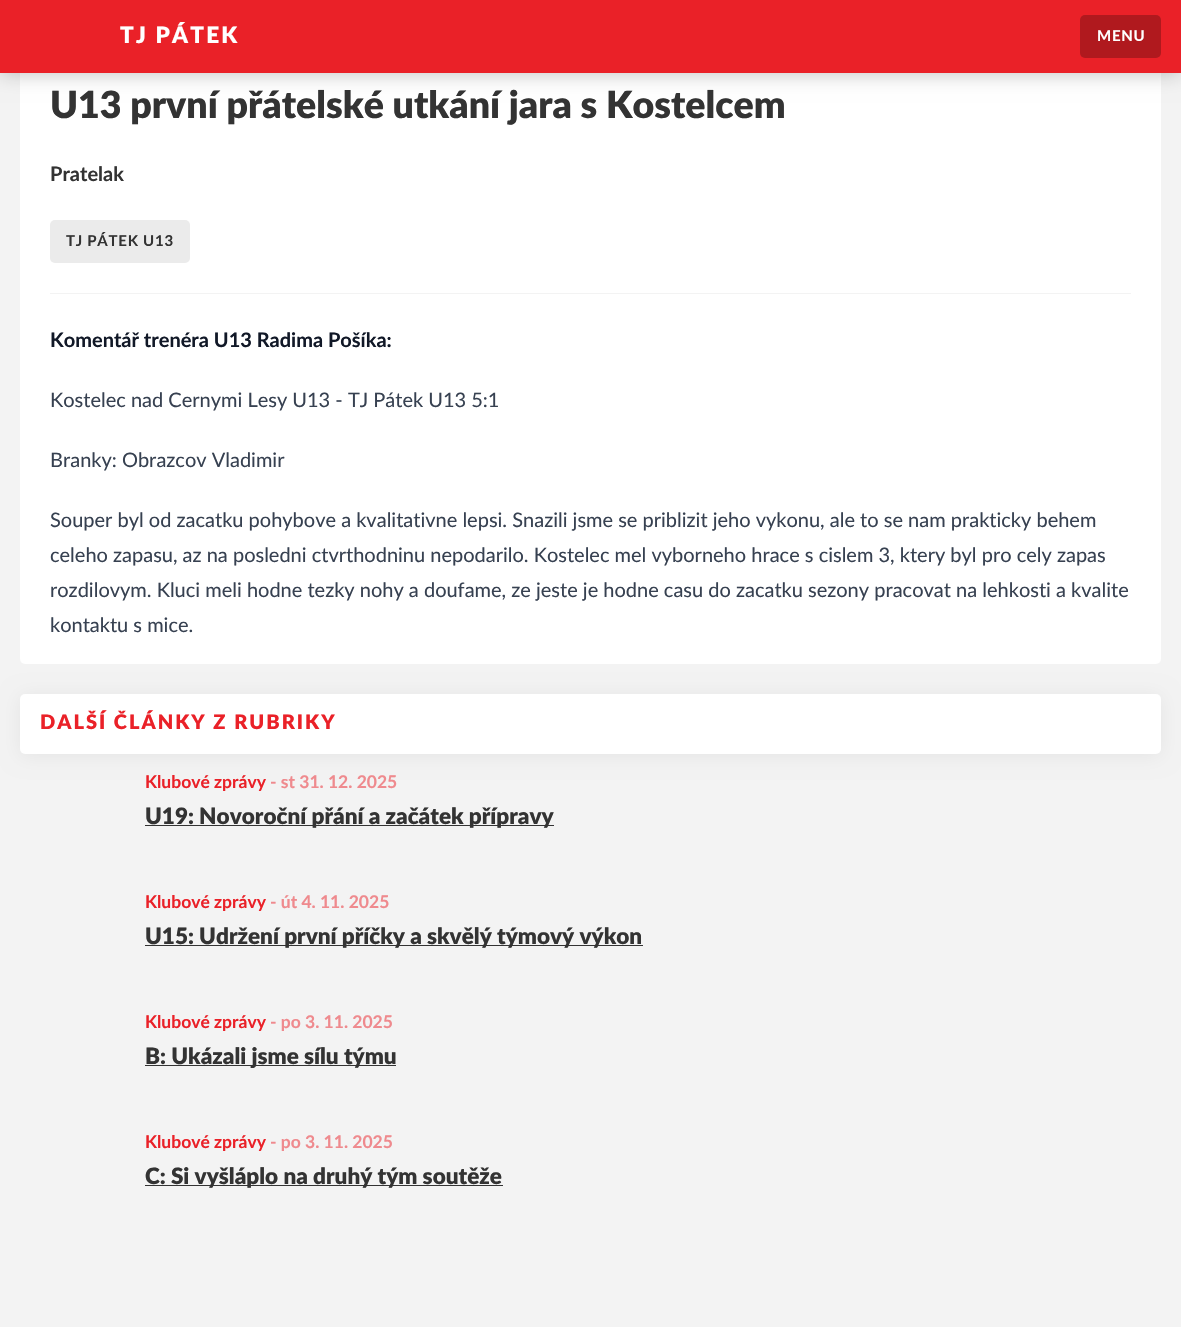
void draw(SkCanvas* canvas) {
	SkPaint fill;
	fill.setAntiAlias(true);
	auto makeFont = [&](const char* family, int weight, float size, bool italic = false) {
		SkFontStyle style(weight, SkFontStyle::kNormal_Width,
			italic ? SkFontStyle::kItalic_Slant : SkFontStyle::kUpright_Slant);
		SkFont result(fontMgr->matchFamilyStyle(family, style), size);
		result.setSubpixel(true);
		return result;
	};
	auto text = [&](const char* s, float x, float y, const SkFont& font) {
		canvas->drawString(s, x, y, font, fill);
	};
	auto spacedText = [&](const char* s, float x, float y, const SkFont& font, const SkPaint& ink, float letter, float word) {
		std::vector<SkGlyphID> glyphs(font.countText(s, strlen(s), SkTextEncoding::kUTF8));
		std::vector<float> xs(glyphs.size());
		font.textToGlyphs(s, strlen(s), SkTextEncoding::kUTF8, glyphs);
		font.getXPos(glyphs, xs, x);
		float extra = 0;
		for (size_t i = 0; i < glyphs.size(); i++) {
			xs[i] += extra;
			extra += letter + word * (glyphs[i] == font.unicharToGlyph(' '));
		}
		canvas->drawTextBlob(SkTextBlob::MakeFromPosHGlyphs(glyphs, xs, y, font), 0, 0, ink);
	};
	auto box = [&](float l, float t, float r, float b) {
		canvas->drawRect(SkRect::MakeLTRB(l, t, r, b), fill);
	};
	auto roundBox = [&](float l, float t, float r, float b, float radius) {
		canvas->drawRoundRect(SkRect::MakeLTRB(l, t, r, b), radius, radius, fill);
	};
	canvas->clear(0xFFF3F3F3);
	fill.setColor(0xFFFFFFFF);
	roundBox(20, -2, 1161, 664, 5);
	fill.setColor(0x40000000);
	fill.setMaskFilter(SkMaskFilter::MakeBlur(kNormal_SkBlurStyle, 10));
	canvas->drawRect(SkRect::MakeLTRB(0, 0, 1181, 73), fill);
	fill.setMaskFilter(nullptr);
	fill.setColor(0xFFEA2128);
	box(0, 0, 1181, 73);
	fill.setColor(0xFFB0191E);
	roundBox(1080, 15, 1161, 58, 5);
	fill.setColor(0xFFEBEBEB);
	roundBox(50, 220, 190, 263, 5);
	fill.setColor(0xFFF3F3F3);
	box(50, 293, 1131, 294);
	fill.setColor(0x0F000000);
	fill.setMaskFilter(SkMaskFilter::MakeBlur(kNormal_SkBlurStyle, 10));
	canvas->drawRoundRect(SkRect::MakeLTRB(20, 696, 1161, 756), 5, 5, fill);
	fill.setMaskFilter(nullptr);
	fill.setColor(0xFFFFFFFF);
	roundBox(20, 694, 1161, 754, 5);
	fill.setColor(0xFF333333);
	box(145, 825, 554, 826);
	box(145, 945, 643, 946);
	box(145, 1065, 396, 1066);
	box(145, 1185, 503, 1186);
	auto font1 = makeFont("Lato", 900, 22.5f);
	fill.setColor(0xFFFFFFFF);
	spacedText("TJ PÁTEK", 120, 43, font1, fill, 2.25f, 0);
	auto font2 = makeFont("Lato", 700, 15);
	spacedText("MENU", 1097, 41, font2, fill, 0.75f, 0);
	auto font3 = makeFont("Lato", 900, 37.5f);
	fill.setColor(0xFF333333);
	text("U13 první přátelské utkání jara s Kostelcem", 50, 118, font3);
	auto font4 = makeFont("Lato", 700, 20);
	text("Pratelak", 50, 181, font4);
	spacedText("TJ PÁTEK U13", 66, 246, font2, fill, 0.75f, 0);
	fill.setColor(0xFF111827);
	text("Komentář trenéra U13 Radima Pošíka:", 50, 347, font4);
	auto font5 = makeFont("Lato", 400, 20);
	fill.setColor(0xFF374151);
	text("Kostelec nad Cernymi Lesy U13 - TJ Pátek U13 5:1", 50, 407, font5);
	text("Branky: Obrazcov Vladimir", 50, 467, font5);
	text("Souper byl od zacatku pohybove a kvalitativne lepsi. Snazili jsme se priblizit jeho vykonu, ale to se nam prakticky behem", 50, 527, font5);
	text("celeho zapasu, az na posledni ctvrthodninu nepodarilo. Kostelec mel vyborneho hrace s cislem 3, ktery byl pro cely zapas", 50, 562, font5);
	text("rozdilovym. Kluci meli hodne tezky nohy a doufame, ze jeste je hodne casu do zacatku sezony pracovat na lehkosti a kvalite", 50, 597, font5);
	text("kontaktu s mice.", 50, 632, font5);
	auto font6 = makeFont("Lato", 900, 20);
	fill.setColor(0xFFEA2128);
	spacedText("DALŠÍ ČLÁNKY Z RUBRIKY", 40, 729, font6, fill, 2, 0);
	auto font7 = makeFont("Lato", 700, 17.5f);
	text("Klubové zprávy", 145, 788, font7);
	fill.setColor(0xFFEF8A8E);
	text("- st 31. 12. 2025", 270, 788, font7);
	fill.setColor(0xFF333333);
	text("U19: Novoroční přání a začátek přípravy", 145, 824, font1);
	fill.setColor(0xFFEA2128);
	text("Klubové zprávy", 145, 908, font7);
	fill.setColor(0xFFEF8A8E);
	text("- út 4. 11. 2025", 270, 908, font7);
	fill.setColor(0xFF333333);
	text("U15: Udržení první příčky a skvělý týmový výkon", 145, 944, font1);
	fill.setColor(0xFFEA2128);
	text("Klubové zprávy", 145, 1028, font7);
	fill.setColor(0xFFEF8A8E);
	text("- po 3. 11. 2025", 270, 1028, font7);
	fill.setColor(0xFF333333);
	text("B: Ukázali jsme sílu týmu", 145, 1064, font1);
	fill.setColor(0xFFEA2128);
	text("Klubové zprávy", 145, 1148, font7);
	fill.setColor(0xFFEF8A8E);
	text("- po 3. 11. 2025", 270, 1148, font7);
	fill.setColor(0xFF333333);
	text("C: Si vyšláplo na druhý tým soutěže", 145, 1184, font1);
}
